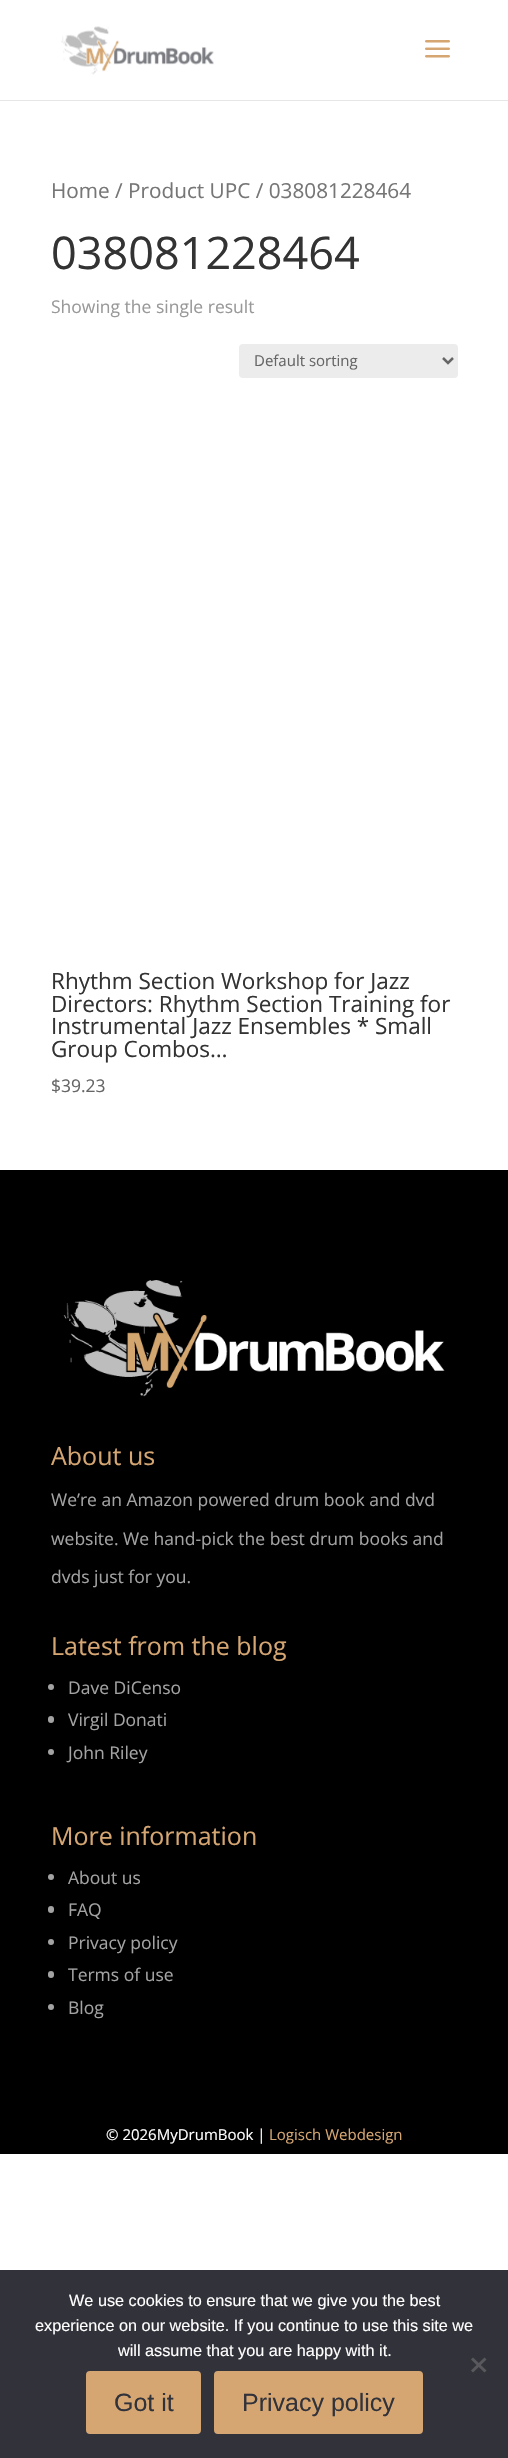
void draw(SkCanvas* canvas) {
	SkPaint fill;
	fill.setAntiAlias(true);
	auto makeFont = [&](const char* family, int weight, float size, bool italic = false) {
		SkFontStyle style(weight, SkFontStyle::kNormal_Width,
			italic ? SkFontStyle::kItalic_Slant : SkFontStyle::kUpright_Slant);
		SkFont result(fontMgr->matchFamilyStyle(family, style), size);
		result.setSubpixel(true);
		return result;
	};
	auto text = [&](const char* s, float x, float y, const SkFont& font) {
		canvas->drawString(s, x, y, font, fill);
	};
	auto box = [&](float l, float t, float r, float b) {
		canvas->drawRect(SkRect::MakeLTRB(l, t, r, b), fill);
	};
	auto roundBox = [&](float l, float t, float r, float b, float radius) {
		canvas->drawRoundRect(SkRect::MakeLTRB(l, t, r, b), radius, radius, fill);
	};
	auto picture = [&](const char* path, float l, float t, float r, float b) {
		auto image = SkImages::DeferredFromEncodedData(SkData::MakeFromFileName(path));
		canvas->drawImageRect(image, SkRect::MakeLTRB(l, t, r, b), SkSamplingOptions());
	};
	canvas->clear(0xFFFFFFFF);
	fill.setColor(0xFFE6E6E6);
	canvas->drawPath(SkPathBuilder().moveTo(0, 100).lineTo(0, 101).lineTo(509, 101).lineTo(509, 1).lineTo(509, 100).close().detach(), fill);
	picture("image0.png", 61, 26, 214, 75);
	picture("image1.png", 425, 40, 450, 58);
	fill.setColor(0xFFECECEC);
	roundBox(239, 344, 458, 378, 4);
	fill.setStyle(SkPaint::kStroke_Style);
	fill.setStrokeWidth(2.5f);
	fill.setColor(0xFF666666);
	canvas->drawPath(SkPathBuilder().moveTo(443, 358).lineTo(448, 363).lineTo(453, 358).detach(), fill);
	fill.setStyle(SkPaint::kFill_Style);
	fill.setColor(0xFF000000);
	box(0, 1170, 508, 2154);
	picture("image2.png", 63, 1280, 445, 1397);
	fill.setColor(0xFFA3A3A3);
	canvas->drawCircle(51, 1687, 3, fill);
	roundBox(48, 1716, 54, 1723, 3);
	canvas->drawCircle(51, 1752, 3, fill);
	canvas->drawCircle(51, 1877, 3, fill);
	roundBox(48, 1906, 54, 1913, 3);
	canvas->drawCircle(51, 1942, 3, fill);
	roundBox(48, 1971, 54, 1978, 3);
	canvas->drawCircle(51, 2007, 3, fill);
	fill.setColor(0xFF32323A);
	box(0, 2270, 508, 2458);
	fill.setColor(0xFF59595D);
	canvas->drawPath(SkPathBuilder().moveTo(484.5f, 2357.5f).lineTo(486.5f, 2359.5f).lineTo(473, 2372.5f).lineTo(471, 2370.5f).close().detach(), fill);
	canvas->drawPath(SkPathBuilder().moveTo(471, 2359.5f).lineTo(473, 2357.5f).lineTo(486.5f, 2370.5f).lineTo(484.5f, 2372.5f).close().detach(), fill);
	fill.setColor(0xFFD5A672);
	canvas->drawRoundRect(SkRect::MakeLTRB(87.5f, 2372.5f, 199.5f, 2432.5f), 2.5f, 2.5f, fill);
	fill.setStyle(SkPaint::kStroke_Style);
	fill.setStrokeWidth(3);
	canvas->drawRoundRect(SkRect::MakeLTRB(87.5f, 2372.5f, 199.5f, 2432.5f), 2.5f, 2.5f, fill);
	fill.setStyle(SkPaint::kFill_Style);
	canvas->drawRoundRect(SkRect::MakeLTRB(215.5f, 2372.5f, 421.5f, 2432.5f), 2.5f, 2.5f, fill);
	fill.setStyle(SkPaint::kStroke_Style);
	canvas->drawRoundRect(SkRect::MakeLTRB(215.5f, 2372.5f, 421.5f, 2432.5f), 2.5f, 2.5f, fill);
	auto font1 = makeFont("Open Sans", 400, 20.75f);
	fill.setStyle(SkPaint::kFill_Style);
	fill.setColor(0xFF767676);
	text("Home / Product UPC / 038081228464", 51, 198, font1);
	auto font2 = makeFont("Open Sans", 400, 45);
	fill.setColor(0xFF333333);
	text("038081228464", 51, 269, font2);
	auto font3 = makeFont("Open Sans", 400, 17.5f);
	fill.setColor(0xFF999999);
	text("Showing the single result", 51, 313, font3);
	auto font4 = makeFont("Open Sans", 400, 15);
	fill.setColor(0xFF666666);
	text("Default sorting", 254, 366, font4);
	auto font5 = makeFont("Open Sans", 400, 22.5f);
	fill.setColor(0xFF333333);
	text("Rhythm Section Workshop for Jazz", 51, 989, font5);
	text("Directors: Rhythm Section Training for", 51, 1012, font5);
	text("Instrumental Jazz Ensembles * Small", 51, 1034, font5);
	text("Group Combos…", 51, 1057, font5);
	fill.setColor(0xFF666666);
	text("$39.23", 51, 1092, font3);
	auto font6 = makeFont("Open Sans", 400, 25);
	fill.setColor(0xFFD5A672);
	text("About us", 51, 1465, font6);
	fill.setColor(0xFFA3A3A3);
	text("We’re an Amazon powered drum book and dvd", 51, 1506, font3);
	text("website. We hand-pick the best drum books and", 51, 1545, font3);
	text("dvds just for you.", 51, 1583, font3);
	fill.setColor(0xFFD5A672);
	text("Latest from the blog", 51, 1655, font6);
	fill.setColor(0xFFA3A3A3);
	text("Dave DiCenso", 68, 1694, font3);
	text("Virgil Donati", 68, 1726, font3);
	text("John Riley", 68, 1759, font3);
	fill.setColor(0xFFD5A672);
	text("More information", 51, 1845, font6);
	fill.setColor(0xFFA3A3A3);
	text("About us", 68, 1884, font3);
	text("FAQ", 68, 1916, font3);
	text("Privacy policy", 68, 1949, font3);
	text("Terms of use", 68, 1981, font3);
	text("Blog", 68, 2014, font3);
	fill.setColor(0xFFFFFFFF);
	text("© 2026MyDrumBook |", 106, 2140, font4);
	fill.setColor(0xFFD5A672);
	text("Logisch Webdesign", 269, 2140, font4);
	auto font7 = makeFont("Liberation Sans", 400, 16.25f);
	fill.setColor(0xFFFFFFFF);
	text("We use cookies to ensure that we give you the best", 69, 2306, font7);
	text("experience on our website. If you continue to use this site we", 35, 2331, font7);
	text("will assume that you are happy with it.", 118, 2356, font7);
	auto font8 = makeFont("Liberation Sans", 400, 25);
	fill.setColor(0xFF32323A);
	text("Got it", 114, 2411, font8);
	text("Privacy policy", 242, 2411, font8);
}
